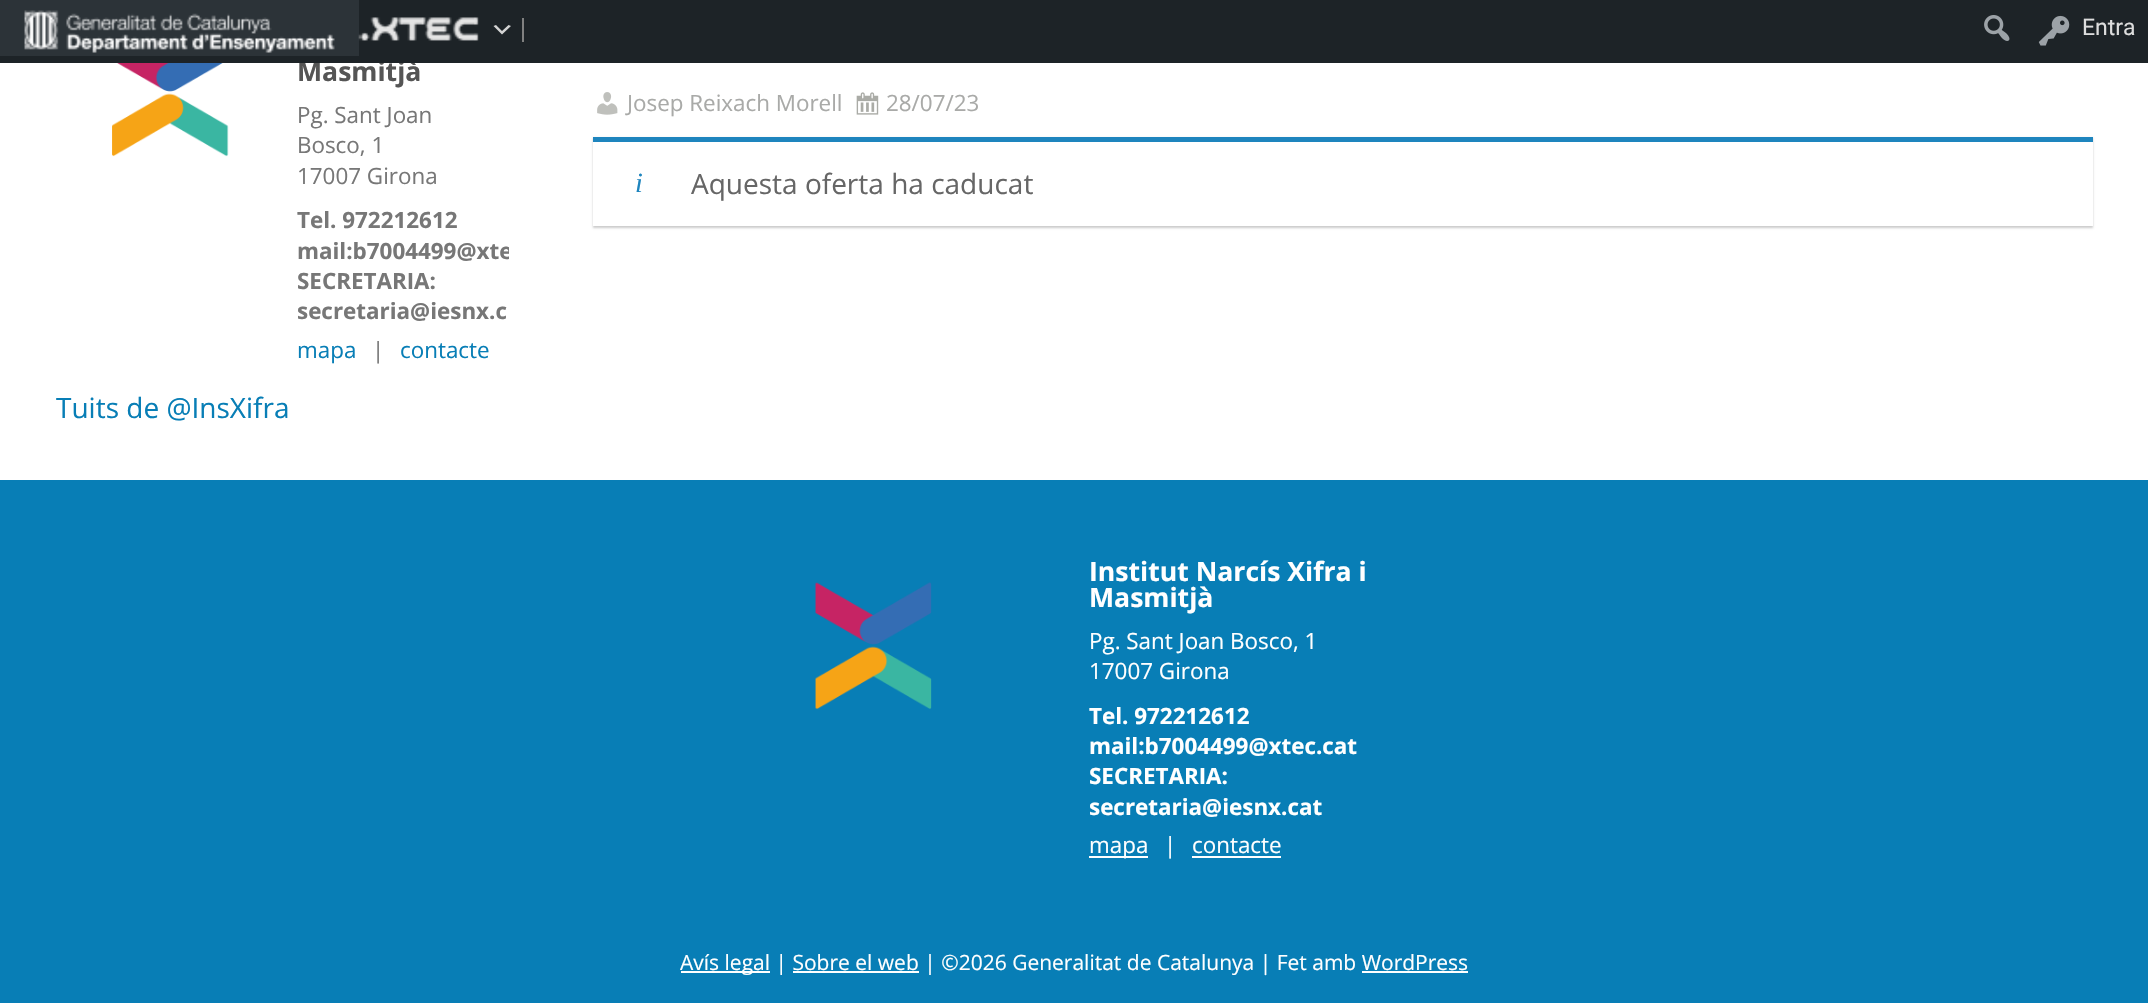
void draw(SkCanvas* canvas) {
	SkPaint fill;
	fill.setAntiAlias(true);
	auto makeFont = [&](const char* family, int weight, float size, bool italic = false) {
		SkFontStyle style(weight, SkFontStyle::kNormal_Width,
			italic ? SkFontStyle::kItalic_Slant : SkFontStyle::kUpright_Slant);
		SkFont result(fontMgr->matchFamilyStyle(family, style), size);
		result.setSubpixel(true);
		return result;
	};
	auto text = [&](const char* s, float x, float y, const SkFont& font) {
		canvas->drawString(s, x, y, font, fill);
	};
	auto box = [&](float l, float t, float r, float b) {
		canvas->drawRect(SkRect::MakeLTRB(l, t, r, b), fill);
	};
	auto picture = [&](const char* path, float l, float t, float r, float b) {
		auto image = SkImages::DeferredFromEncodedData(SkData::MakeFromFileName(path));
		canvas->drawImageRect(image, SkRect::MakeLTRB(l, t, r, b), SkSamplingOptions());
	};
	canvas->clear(0xFFFFFFFF);
	picture("image4.png", 112, 63, 229, 157);
	picture("image5.png", 597, 92, 618, 115);
	picture("image6.png", 856, 92, 879, 115);
	fill.setColor(0x33000000);
	fill.setMaskFilter(SkMaskFilter::MakeBlur(kNormal_SkBlurStyle, 1));
	canvas->drawRect(SkRect::MakeLTRB(593, 138, 2093, 228), fill);
	fill.setMaskFilter(nullptr);
	fill.setColor(0xFFFFFFFF);
	box(593, 142, 2093, 226);
	fill.setColor(0xFF1E85BE);
	box(593, 137, 2093, 142);
	fill.setColor(0xFF087EB6);
	box(0, 480, 2148, 1003);
	picture("image7.png", 815, 582, 932, 710);
	fill.setColor(0xFFFFFFFF);
	box(1089, 856, 1148, 858);
	box(1192, 856, 1281, 858);
	box(681, 971, 770, 973);
	box(793, 971, 919, 973);
	box(1362, 971, 1468, 973);
	auto font1 = makeFont("Open Sans", 700, 26.6f);
	fill.setColor(0xFF555555);
	text("Masmitjà", 297, 81, font1);
	fill.setColor(0xFF1D2327);
	box(0, 0, 2148, 63);
	picture("image0.png", 1984, 15, 2010, 41);
	picture("image3.png", 2038, 15, 2070, 46);
	auto font2 = makeFont("Roboto", 400, 23);
	fill.setColor(0xFFDDDDDD);
	text("Entra", 2082, 35, font2);
	fill.setColor(0xFFD3D3D3);
	canvas->drawPath(SkPathBuilder().moveTo(496, 25).lineTo(502, 31).lineTo(508.5f, 25).lineTo(511, 26).lineTo(502, 34.5f).lineTo(493.5f, 26).close().detach(), fill);
	fill.setColor(0xFF808080);
	box(522, 18, 524, 42);
	fill.setColor(0xFF2C3338);
	box(0, 0, 359, 56);
	picture("image2.png", 358, 17, 479, 41);
	picture("image1.png", 24, 10, 335, 53);
	auto font3 = makeFont("Open Sans", 400, 22.4f);
	fill.setColor(0xFF777777);
	text("Pg. Sant Joan", 297, 123, font3);
	text("Bosco, 1", 297, 153, font3);
	text("17007 Girona", 297, 184, font3);
	auto font4 = makeFont("Open Sans", 700, 22.4f);
	text("Tel. 972212612", 297, 228, font4);
	canvas->save();
	canvas->clipRect(SkRect::MakeLTRB(56, 0, 509, 364));
	text("mail:b7004499@xte", 297, 259, font4);
	canvas->restore();
	text("SECRETARIA:", 297, 289, font4);
	text("secretaria@iesnx.c", 297, 319, font4);
	fill.setColor(0xFF087EB6);
	text("mapa", 297, 358, font3);
	fill.setColor(0xFF777777);
	text("|", 372, 358, font3);
	fill.setColor(0xFF087EB6);
	text("contacte", 400, 358, font3);
	auto font5 = makeFont("Open Sans", 400, 28);
	text("Tuits de @InsXifra", 56, 418, font5);
	fill.setColor(0xFFA9AAA8);
	text("Josep Reixach Morell", 627, 111, font3);
	text("28/07/23", 886, 111, font3);
	auto font6 = makeFont("Liberation Serif", 400, 28, true);
	fill.setColor(0xFF1E85BE);
	text("i", 635, 192, font6);
	fill.setColor(0xFF666666);
	text("Aquesta oferta ha caducat", 691, 194, font5);
	fill.setColor(0xFFFFFFFF);
	text("Institut Narcís Xifra i", 1089, 581, font1);
	text("Masmitjà", 1089, 607, font1);
	text("Pg. Sant Joan Bosco, 1", 1089, 649, font3);
	text("17007 Girona", 1089, 679, font3);
	text("Tel. 972212612", 1089, 724, font4);
	text("mail:b7004499@xtec.cat", 1089, 754, font4);
	text("SECRETARIA:", 1089, 784, font4);
	text("secretaria@iesnx.cat", 1089, 815, font4);
	text("mapa", 1089, 853, font3);
	text("|", 1164, 853, font3);
	text("contacte", 1192, 853, font3);
	auto font7 = makeFont("Open Sans", 400, 21);
	text("Avís legal | Sobre el web | ©2026 Generalitat de Catalunya | Fet amb WordPress", 680, 970, font7);
}
